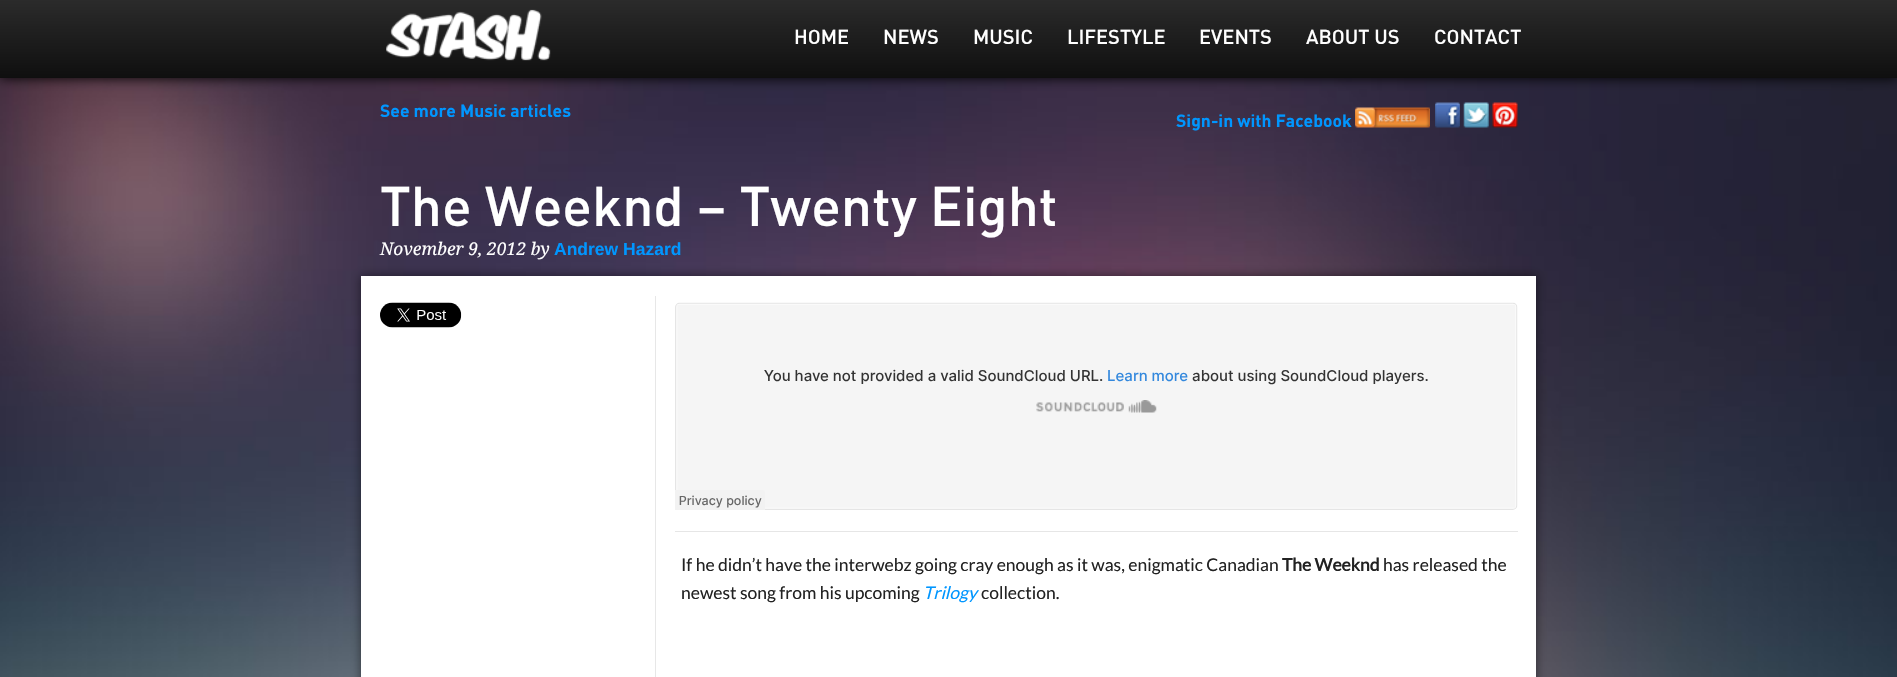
void draw(SkCanvas* canvas) {
	SkPaint fill;
	fill.setAntiAlias(true);
	auto makeFont = [&](const char* family, int weight, float size, bool italic = false) {
		SkFontStyle style(weight, SkFontStyle::kNormal_Width,
			italic ? SkFontStyle::kItalic_Slant : SkFontStyle::kUpright_Slant);
		SkFont result(fontMgr->matchFamilyStyle(family, style), size);
		result.setSubpixel(true);
		return result;
	};
	auto text = [&](const char* s, float x, float y, const SkFont& font) {
		canvas->drawString(s, x, y, font, fill);
	};
	auto box = [&](float l, float t, float r, float b) {
		canvas->drawRect(SkRect::MakeLTRB(l, t, r, b), fill);
	};
	auto picture = [&](const char* path, float l, float t, float r, float b) {
		auto image = SkImages::DeferredFromEncodedData(SkData::MakeFromFileName(path));
		canvas->drawImageRect(image, SkRect::MakeLTRB(l, t, r, b), SkSamplingOptions());
	};
	canvas->clear(0xFFFFFFFF);
	picture("image0.png", 0, 78, 1897, 677);
	fill.setColor(0xFF000000);
	fill.setMaskFilter(SkMaskFilter::MakeBlur(kNormal_SkBlurStyle, 6));
	canvas->drawRect(SkRect::MakeLTRB(0, 0, 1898, 78), fill);
	fill.setMaskFilter(nullptr);
	{
		const SkColor colors[] = {0xFF2B2B2B, 0xFF0F0F0F};
		const float stops[] = {0, 1};
		const SkPoint ends[] = {{949, 0}, {949, 78}};
		fill.setShader(SkGradientShader::MakeLinear(ends, colors, stops, 2, SkTileMode::kClamp));
		fill.setAlpha(255);
	}
	box(0, 0, 1897, 78);
	picture("image1.png", 386, 9, 551, 61);
	picture("image2.png", 1355, 107, 1430, 128);
	picture("image3.png", 1435, 102, 1460, 128);
	picture("image4.png", 1463, 102, 1489, 128);
	picture("image5.png", 1492, 102, 1518, 128);
	fill.setShader(nullptr);
	fill.setColor(0x80000000);
	fill.setMaskFilter(SkMaskFilter::MakeBlur(kNormal_SkBlurStyle, 5));
	canvas->drawRect(SkRect::MakeLTRB(361, 276, 1536, 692), fill);
	fill.setMaskFilter(nullptr);
	fill.setColor(0xFFFFFFFF);
	box(361, 276, 1536, 677);
	picture("image6.png", 380, 302, 462, 328);
	fill.setColor(0xFFE7E7E7);
	box(655, 296, 656, 677);
	fill.setColor(0xFFE6E6E6);
	box(675, 531, 1518, 532);
	picture("image7.png", 675, 302, 1518, 510);
	auto font1 = makeFont("DIN", 500, 20);
	fill.setColor(0xFFFFFFFF);
	text("HOME", 794, 44, font1);
	text("NEWS", 883, 44, font1);
	text("MUSIC", 973, 44, font1);
	text("LIFESTYLE", 1067, 44, font1);
	text("EVENTS", 1199, 44, font1);
	text("ABOUT US", 1306, 44, font1);
	text("CONTACT", 1434, 44, font1);
	auto font2 = makeFont("DIN", 700, 17.5f);
	fill.setColor(0xFF0096FF);
	text("See more Music articles", 380, 117, font2);
	text("Sign-in with Facebook", 1176, 127, font2);
	auto font3 = makeFont("DIN", 500, 55);
	fill.setColor(0xFFFFFFFF);
	text("The Weeknd – Twenty Eight", 380, 226, font3);
	auto font4 = makeFont("Droid Serif", 400, 17.5f, true);
	text("November 9, 2012 by", 380, 255, font4);
	auto font5 = makeFont("Liberation Sans", 700, 17.5f);
	fill.setColor(0xFF0096FF);
	text("Andrew Hazard", 554, 255, font5);
	auto font6 = makeFont("Lato", 400, 17.5f);
	fill.setColor(0xFF222222);
	text("If he didn’t have the interwebz going cray enough as it was, enigmatic Canadian", 681, 571, font6);
	auto font7 = makeFont("Lato", 700, 17.5f);
	text("The Weeknd", 1282, 571, font7);
	text("has released the", 1383, 571, font6);
	text("newest song from his upcoming", 681, 599, font6);
	auto font8 = makeFont("Lato", 400, 17.5f, true);
	fill.setColor(0xFF0096FF);
	text("Trilogy", 923, 599, font8);
	fill.setColor(0xFF222222);
	text("collection.", 981, 599, font6);
}
